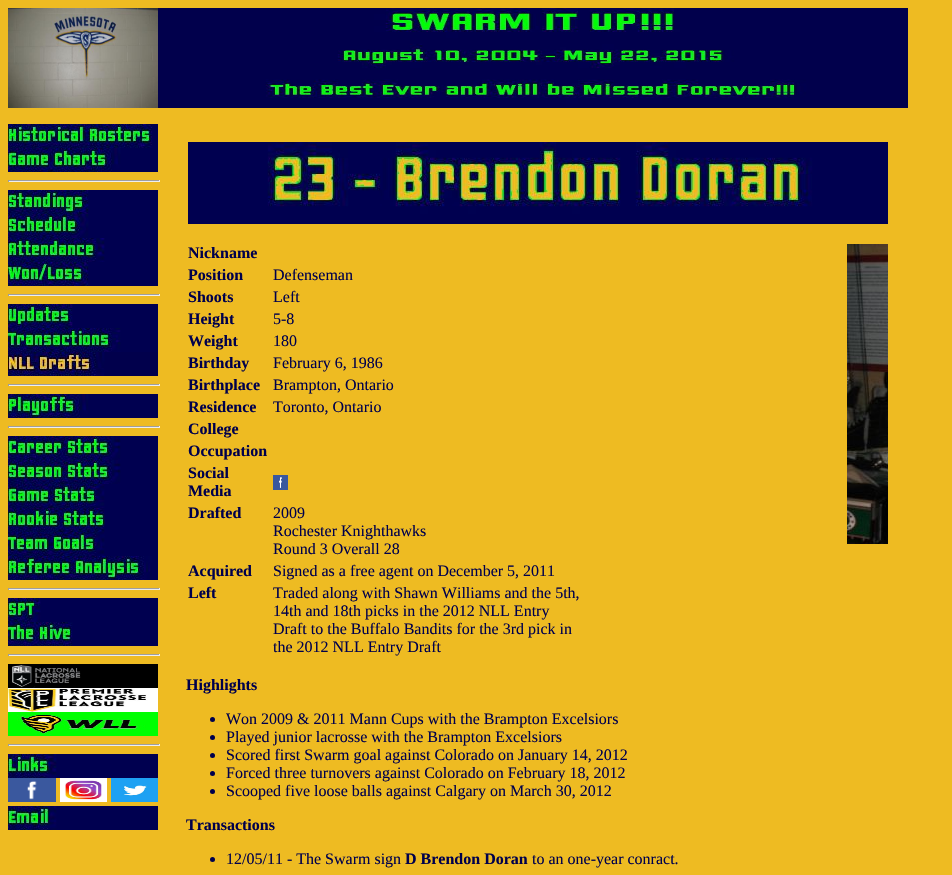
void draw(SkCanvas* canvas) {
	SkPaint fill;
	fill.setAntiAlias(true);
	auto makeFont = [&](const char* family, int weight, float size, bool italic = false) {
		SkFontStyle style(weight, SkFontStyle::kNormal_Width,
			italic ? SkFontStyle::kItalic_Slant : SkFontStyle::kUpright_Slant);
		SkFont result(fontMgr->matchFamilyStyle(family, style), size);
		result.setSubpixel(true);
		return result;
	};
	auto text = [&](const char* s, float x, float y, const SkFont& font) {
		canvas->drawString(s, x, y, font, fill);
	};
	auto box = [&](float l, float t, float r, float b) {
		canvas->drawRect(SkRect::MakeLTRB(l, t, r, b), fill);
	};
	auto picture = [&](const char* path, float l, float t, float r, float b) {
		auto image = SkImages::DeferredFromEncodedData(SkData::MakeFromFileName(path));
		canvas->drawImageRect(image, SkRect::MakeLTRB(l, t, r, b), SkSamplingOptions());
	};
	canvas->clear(0xFFEEBB22);
	picture("image0.png", 8, 8, 158, 108);
	picture("image1.png", 158, 8, 908, 108);
	picture("image2.png", 8, 124, 158, 148);
	picture("image3.png", 8, 148, 158, 172);
	fill.setColor(0xFF9F9F9F);
	box(8, 180, 160, 181);
	fill.setColor(0xFFEEEEEE);
	box(159, 180, 160, 182);
	box(8, 181, 160, 182);
	fill.setColor(0xFF9F9F9F);
	box(8, 180, 9, 182);
	picture("image4.png", 8, 190, 158, 214);
	picture("image5.png", 8, 214, 158, 238);
	picture("image6.png", 8, 238, 158, 262);
	picture("image7.png", 8, 262, 158, 286);
	box(8, 294, 160, 295);
	fill.setColor(0xFFEEEEEE);
	box(159, 294, 160, 296);
	box(8, 295, 160, 296);
	fill.setColor(0xFF9F9F9F);
	box(8, 294, 9, 296);
	picture("image8.png", 8, 304, 158, 328);
	picture("image9.png", 8, 328, 158, 352);
	picture("image10.png", 8, 352, 158, 376);
	box(8, 384, 160, 385);
	fill.setColor(0xFFEEEEEE);
	box(159, 384, 160, 386);
	box(8, 385, 160, 386);
	fill.setColor(0xFF9F9F9F);
	box(8, 384, 9, 386);
	picture("image11.png", 8, 394, 158, 418);
	box(8, 426, 160, 427);
	fill.setColor(0xFFEEEEEE);
	box(159, 426, 160, 428);
	box(8, 427, 160, 428);
	fill.setColor(0xFF9F9F9F);
	box(8, 426, 9, 428);
	picture("image12.png", 8, 436, 158, 460);
	picture("image13.png", 8, 460, 158, 484);
	picture("image14.png", 8, 484, 158, 508);
	picture("image15.png", 8, 508, 158, 532);
	picture("image16.png", 8, 532, 158, 556);
	picture("image17.png", 8, 556, 158, 580);
	box(8, 588, 160, 589);
	fill.setColor(0xFFEEEEEE);
	box(159, 588, 160, 590);
	box(8, 589, 160, 590);
	fill.setColor(0xFF9F9F9F);
	box(8, 588, 9, 590);
	picture("image18.png", 8, 598, 158, 622);
	picture("image19.png", 8, 622, 158, 646);
	box(8, 654, 160, 655);
	fill.setColor(0xFFEEEEEE);
	box(159, 654, 160, 656);
	box(8, 655, 160, 656);
	fill.setColor(0xFF9F9F9F);
	box(8, 654, 9, 656);
	picture("image20.png", 8, 664, 158, 688);
	picture("image21.png", 8, 688, 158, 712);
	picture("image22.png", 8, 712, 158, 736);
	box(8, 744, 160, 745);
	fill.setColor(0xFFEEEEEE);
	box(159, 744, 160, 746);
	box(8, 745, 160, 746);
	fill.setColor(0xFF9F9F9F);
	box(8, 744, 9, 746);
	picture("image23.png", 8, 754, 158, 778);
	picture("image24.png", 8, 778, 56, 802);
	picture("image25.png", 60, 778, 107, 802);
	picture("image26.png", 111, 778, 158, 802);
	picture("image27.png", 8, 806, 158, 830);
	picture("image28.png", 188, 142, 888, 224);
	picture("image29.png", 847, 244, 888, 544);
	picture("image30.png", 273, 475, 288, 490);
	fill.setColor(0xFF00004C);
	canvas->drawCircle(212.5f, 719.5f, 2.5f, fill);
	canvas->drawCircle(212.5f, 737.5f, 2.5f, fill);
	canvas->drawCircle(212.5f, 755.5f, 2.5f, fill);
	canvas->drawCircle(212.5f, 773.5f, 2.5f, fill);
	canvas->drawCircle(212.5f, 791.5f, 2.5f, fill);
	canvas->drawCircle(212.5f, 859.5f, 2.5f, fill);
	auto font1 = makeFont("Liberation Serif", 700, 16);
	text("Nickname", 188, 258, font1);
	text("Position", 188, 280, font1);
	auto font2 = makeFont("Liberation Serif", 400, 16);
	text("Defenseman", 273, 280, font2);
	text("Shoots", 188, 302, font1);
	text("Left", 273, 302, font2);
	text("Height", 188, 324, font1);
	text("5-8", 273, 324, font2);
	text("Weight", 188, 346, font1);
	text("180", 273, 346, font2);
	text("Birthday", 188, 368, font1);
	text("February 6, 1986", 273, 368, font2);
	text("Birthplace", 188, 390, font1);
	text("Brampton, Ontario", 273, 390, font2);
	text("Residence", 188, 412, font1);
	text("Toronto, Ontario", 273, 412, font2);
	text("College", 188, 434, font1);
	text("Occupation", 188, 456, font1);
	text("Social", 188, 478, font1);
	text("Media", 188, 496, font1);
	text("Drafted", 188, 518, font1);
	text("2009", 273, 518, font2);
	text("Rochester Knighthawks", 273, 536, font2);
	text("Round 3 Overall 28", 273, 554, font2);
	text("Acquired", 188, 576, font1);
	text("Signed as a free agent on December 5, 2011", 273, 576, font2);
	text("Left", 188, 598, font1);
	text("Traded along with Shawn Williams and the 5th,", 273, 598, font2);
	text("14th and 18th picks in the 2012 NLL Entry", 273, 616, font2);
	text("Draft to the Buffalo Bandits for the 3rd pick in", 273, 634, font2);
	text("the 2012 NLL Entry Draft", 273, 652, font2);
	text("Highlights", 186, 690, font1);
	text("Won 2009 & 2011 Mann Cups with the Brampton Excelsiors", 226, 724, font2);
	text("Played junior lacrosse with the Brampton Excelsiors", 226, 742, font2);
	text("Scored first Swarm goal against Colorado on January 14, 2012", 226, 760, font2);
	text("Forced three turnovers against Colorado on February 18, 2012", 226, 778, font2);
	text("Scooped five loose balls against Calgary on March 30, 2012", 226, 796, font2);
	text("Transactions", 186, 830, font1);
	text("12/05/11 - The Swarm sign", 226, 864, font2);
	text("D Brendon Doran", 405, 864, font1);
	text("to an one-year conract.", 532, 864, font2);
}
